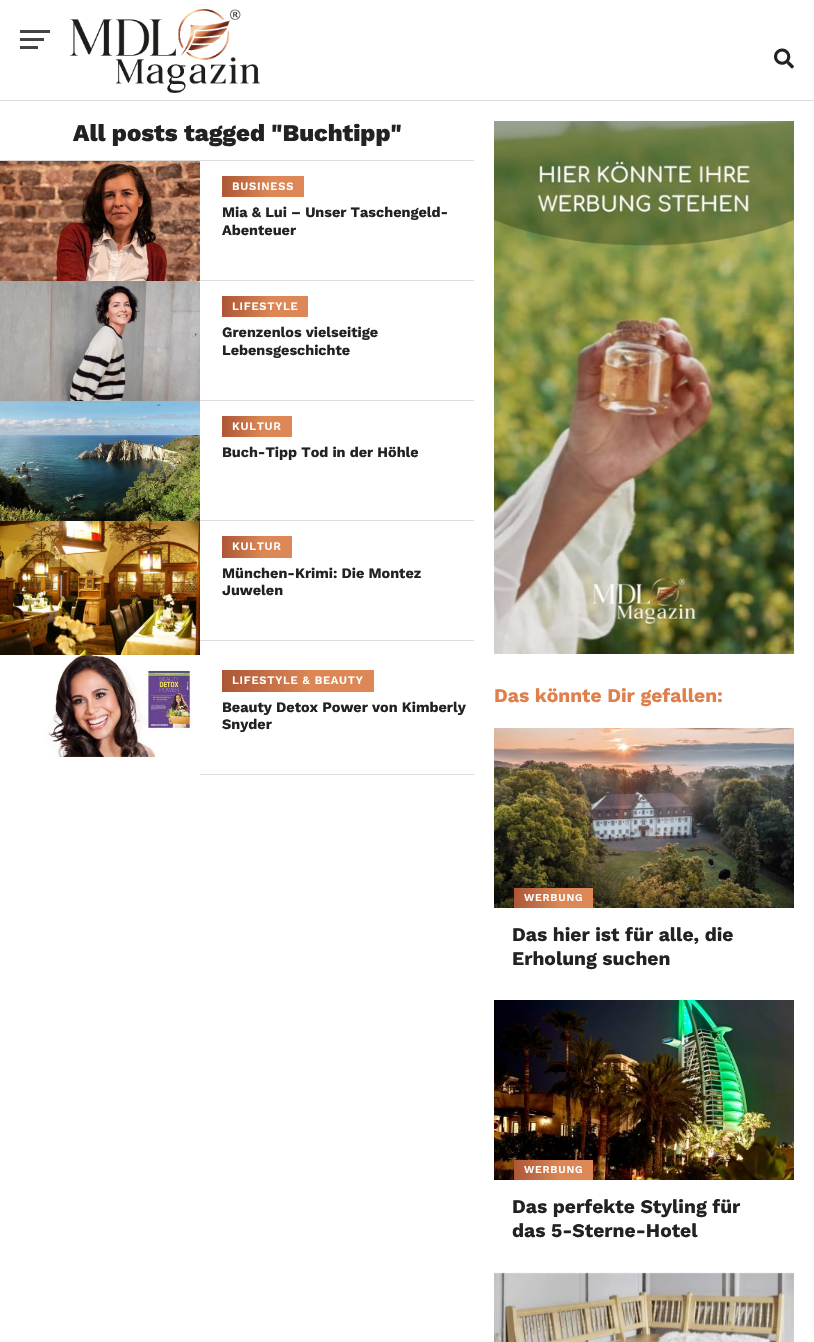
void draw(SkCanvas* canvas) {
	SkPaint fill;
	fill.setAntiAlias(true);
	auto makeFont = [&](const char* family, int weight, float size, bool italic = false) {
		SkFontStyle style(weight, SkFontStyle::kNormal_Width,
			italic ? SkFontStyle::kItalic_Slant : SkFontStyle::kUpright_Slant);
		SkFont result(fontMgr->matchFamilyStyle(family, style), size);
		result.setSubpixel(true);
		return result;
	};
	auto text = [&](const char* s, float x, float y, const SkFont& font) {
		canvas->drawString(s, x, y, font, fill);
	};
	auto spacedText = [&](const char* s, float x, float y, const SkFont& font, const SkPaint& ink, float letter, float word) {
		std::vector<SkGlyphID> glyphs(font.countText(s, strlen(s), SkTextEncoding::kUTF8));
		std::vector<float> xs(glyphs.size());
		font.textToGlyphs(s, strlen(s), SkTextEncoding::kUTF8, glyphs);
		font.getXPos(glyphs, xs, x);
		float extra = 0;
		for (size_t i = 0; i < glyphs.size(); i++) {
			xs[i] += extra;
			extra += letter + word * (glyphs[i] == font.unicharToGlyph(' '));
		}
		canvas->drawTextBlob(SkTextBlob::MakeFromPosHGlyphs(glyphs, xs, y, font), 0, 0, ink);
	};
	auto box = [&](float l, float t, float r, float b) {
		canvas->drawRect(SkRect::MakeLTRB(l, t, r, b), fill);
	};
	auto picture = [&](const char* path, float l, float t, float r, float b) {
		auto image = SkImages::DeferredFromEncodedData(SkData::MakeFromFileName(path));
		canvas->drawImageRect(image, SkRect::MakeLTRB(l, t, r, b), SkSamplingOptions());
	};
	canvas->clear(0xFFFFFFFF);
	fill.setColor(0xFF444444);
	box(20, 30, 50, 33);
	box(20, 38, 44, 41);
	box(20, 46, 38, 49);
	picture("image0.png", 70, 9, 260, 93);
	picture("image1.png", 774, 48, 794, 69);
	fill.setColor(0xFFDDDDDD);
	box(0, 100, 814, 101);
	box(0, 160, 474, 161);
	picture("image2.png", 0, 161, 200, 281);
	box(200, 280, 474, 281);
	{
		const SkColor colors[] = {0xFFAC5636, 0xFFDC8755};
		const float stops[] = {0, 0.58f};
		const SkPoint ends[] = {{222, 187}, {304, 187}};
		fill.setShader(SkGradientShader::MakeLinear(ends, colors, stops, 2, SkTileMode::kClamp));
		fill.setAlpha(255);
	}
	box(222, 176, 304, 197);
	picture("image3.png", 0, 281, 200, 401);
	fill.setShader(nullptr);
	fill.setColor(0xFFDDDDDD);
	box(200, 400, 474, 401);
	{
		const SkColor colors[] = {0xFFAC5636, 0xFFDC8755};
		const float stops[] = {0, 0.58f};
		const SkPoint ends[] = {{222, 307}, {308, 307}};
		fill.setShader(SkGradientShader::MakeLinear(ends, colors, stops, 2, SkTileMode::kClamp));
		fill.setAlpha(255);
	}
	box(222, 296, 308, 317);
	picture("image4.png", 0, 401, 200, 521);
	fill.setShader(nullptr);
	fill.setColor(0xFFDDDDDD);
	box(200, 520, 474, 521);
	{
		const SkColor colors[] = {0xFFAC5636, 0xFFDC8755};
		const float stops[] = {0, 0.58f};
		const SkPoint ends[] = {{222, 427}, {292, 427}};
		fill.setShader(SkGradientShader::MakeLinear(ends, colors, stops, 2, SkTileMode::kClamp));
		fill.setAlpha(255);
	}
	box(222, 416, 292, 437);
	picture("image5.png", 0, 521, 200, 655);
	fill.setShader(nullptr);
	fill.setColor(0xFFDDDDDD);
	box(200, 640, 474, 641);
	{
		const SkColor colors[] = {0xFFAC5636, 0xFFDC8755};
		const float stops[] = {0, 0.58f};
		const SkPoint ends[] = {{222, 547}, {292, 547}};
		fill.setShader(SkGradientShader::MakeLinear(ends, colors, stops, 2, SkTileMode::kClamp));
		fill.setAlpha(255);
	}
	box(222, 536, 292, 558);
	picture("image6.png", 0, 655, 200, 757);
	fill.setShader(nullptr);
	fill.setColor(0xFFDDDDDD);
	box(200, 774, 474, 775);
	{
		const SkColor colors[] = {0xFFAC5636, 0xFFDC8755};
		const float stops[] = {0, 0.58f};
		const SkPoint ends[] = {{222, 681}, {374, 681}};
		fill.setShader(SkGradientShader::MakeLinear(ends, colors, stops, 2, SkTileMode::kClamp));
		fill.setAlpha(255);
	}
	box(222, 670, 374, 692);
	picture("image7.png", 494, 121, 794, 654);
	picture("image8.png", 494, 728, 794, 908);
	{
		const SkColor colors[] = {0xFFAC5636, 0xFFDC8755};
		const float stops[] = {0, 0.58f};
		const SkPoint ends[] = {{514, 898}, {593, 898}};
		fill.setShader(SkGradientShader::MakeLinear(ends, colors, stops, 2, SkTileMode::kClamp));
		fill.setAlpha(255);
	}
	box(514, 888, 593, 908);
	picture("image9.png", 494, 1000, 794, 1180);
	{
		const SkColor colors[] = {0xFFAC5636, 0xFFDC8755};
		const float stops[] = {0, 0.58f};
		const SkPoint ends[] = {{514, 1170}, {593, 1170}};
		fill.setShader(SkGradientShader::MakeLinear(ends, colors, stops, 2, SkTileMode::kClamp));
		fill.setAlpha(255);
	}
	box(514, 1160, 593, 1180);
	picture("image10.png", 494, 1272, 794, 1342);
	auto font1 = makeFont("Work Sans", 800, 24);
	fill.setShader(nullptr);
	fill.setColor(0xFF222222);
	text("All posts tagged \"Buchtipp\"", 73, 141, font1);
	auto font2 = makeFont("Work Sans", 600, 11.25f);
	fill.setColor(0xFFFFFFFF);
	spacedText("BUSINESS", 232, 190, font2, fill, 0.75f, 0);
	auto font3 = makeFont("Work Sans", 700, 14.4f);
	fill.setColor(0xFF222222);
	text("Mia & Lui – Unser Taschengeld-", 222, 217, font3);
	text("Abenteuer", 222, 235, font3);
	fill.setColor(0xFFFFFFFF);
	spacedText("LIFESTYLE", 232, 310, font2, fill, 0.75f, 0);
	fill.setColor(0xFF222222);
	text("Grenzenlos vielseitige", 222, 337, font3);
	text("Lebensgeschichte", 222, 355, font3);
	fill.setColor(0xFFFFFFFF);
	spacedText("KULTUR", 232, 430, font2, fill, 0.75f, 0);
	fill.setColor(0xFF222222);
	text("Buch-Tipp Tod in der Höhle", 222, 457, font3);
	fill.setColor(0xFFFFFFFF);
	spacedText("KULTUR", 232, 550, font2, fill, 0.75f, 0);
	fill.setColor(0xFF222222);
	text("München-Krimi: Die Montez", 222, 578, font3);
	text("Juwelen", 222, 595, font3);
	fill.setColor(0xFFFFFFFF);
	spacedText("LIFESTYLE & BEAUTY", 232, 684, font2, fill, 0.75f, 0);
	fill.setColor(0xFF222222);
	text("Beauty Detox Power von Kimberly", 222, 712, font3);
	text("Snyder", 222, 729, font3);
	auto font4 = makeFont("Work Sans", 700, 19.25f);
	fill.setColor(0xFFDF7F4D);
	text("Das könnte Dir gefallen:", 494, 702, font4);
	auto font5 = makeFont("Work Sans", 600, 10.5f);
	fill.setColor(0xFFFFFFFF);
	spacedText("WERBUNG", 524, 901, font5, fill, 0.75f, 0);
	fill.setColor(0xFF222222);
	text("Das hier ist für alle, die", 512, 941, font4);
	text("Erholung suchen", 512, 965, font4);
	fill.setColor(0xFFFFFFFF);
	spacedText("WERBUNG", 524, 1173, font5, fill, 0.75f, 0);
	fill.setColor(0xFF222222);
	text("Das perfekte Styling für", 512, 1213, font4);
	text("das 5-Sterne-Hotel", 512, 1237, font4);
}
